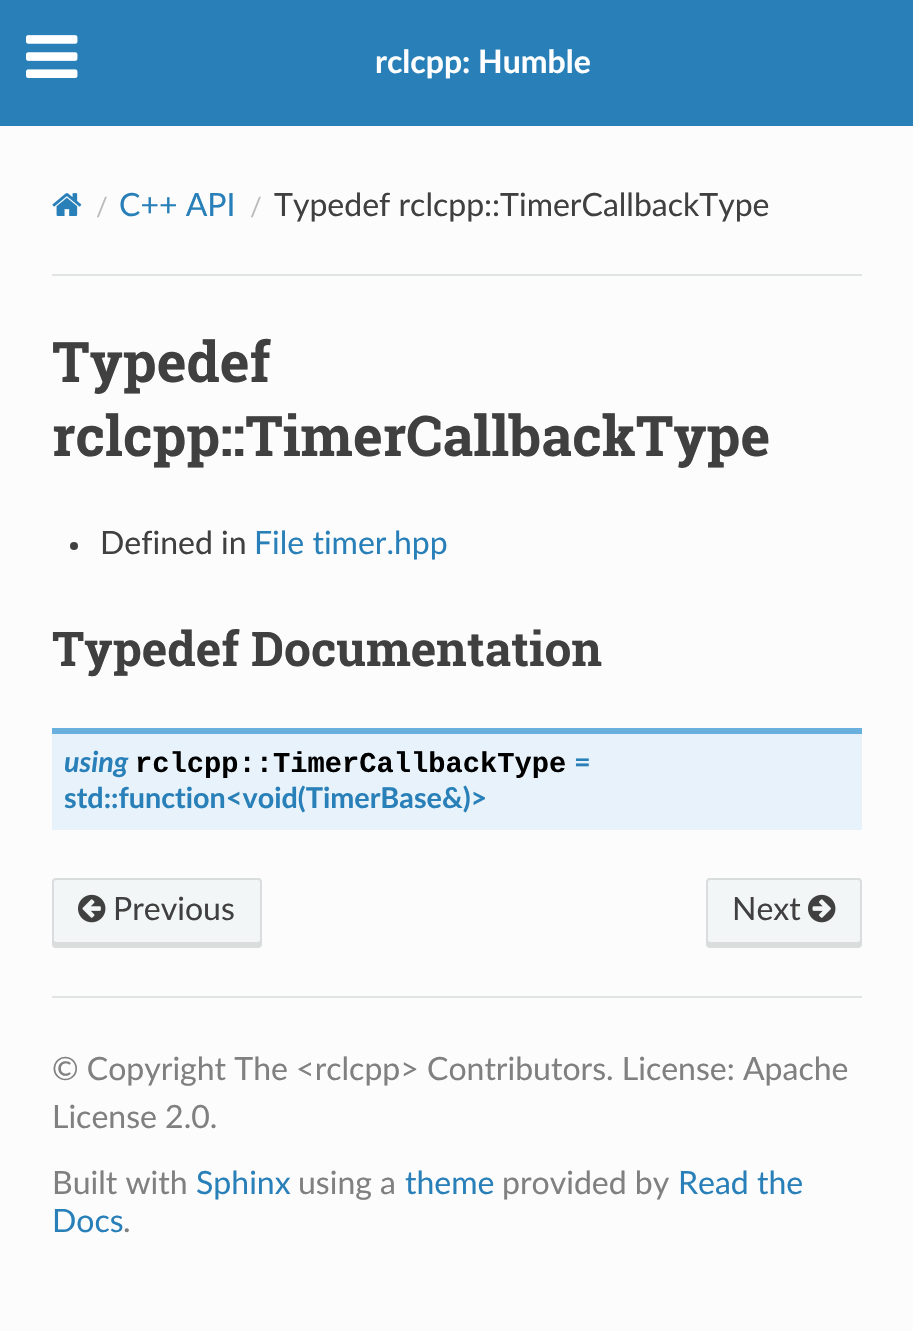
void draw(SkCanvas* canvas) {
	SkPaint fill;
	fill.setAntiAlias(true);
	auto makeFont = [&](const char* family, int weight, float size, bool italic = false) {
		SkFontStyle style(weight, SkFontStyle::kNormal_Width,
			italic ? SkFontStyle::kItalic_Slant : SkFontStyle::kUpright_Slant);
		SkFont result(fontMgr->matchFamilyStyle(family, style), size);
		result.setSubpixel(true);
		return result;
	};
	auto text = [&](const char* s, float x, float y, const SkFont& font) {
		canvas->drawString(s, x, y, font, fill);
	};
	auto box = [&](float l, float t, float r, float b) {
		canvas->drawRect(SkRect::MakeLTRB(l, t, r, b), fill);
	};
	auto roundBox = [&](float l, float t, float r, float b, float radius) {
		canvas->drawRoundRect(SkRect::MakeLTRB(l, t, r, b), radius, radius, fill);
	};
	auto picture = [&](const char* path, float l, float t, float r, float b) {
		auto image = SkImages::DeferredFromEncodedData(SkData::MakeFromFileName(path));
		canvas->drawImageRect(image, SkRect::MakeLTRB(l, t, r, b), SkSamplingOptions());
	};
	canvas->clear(0xFFFCFCFC);
	fill.setColor(0xFF2980B9);
	box(0, 0, 913, 126);
	picture("image0.png", 26, 35, 78, 78);
	picture("image1.png", 52, 193, 82, 216);
	fill.setColor(0xFFE1E4E5);
	box(52, 274, 862, 276);
	fill.setColor(0xFF404040);
	canvas->drawCircle(74, 546, 4, fill);
	fill.setColor(0xFFE7F2FA);
	box(52, 734, 862, 830);
	fill.setColor(0xFF6AB0DE);
	box(52, 728, 862, 734);
	fill.setColor(0xFFF3F6F6);
	roundBox(52, 878, 262, 948, 4);
	fill.setColor(0xFFDBDDDD);
	canvas->drawPath(SkPathBuilder().moveTo(54, 940).lineTo(54, 944).cubicTo(54, 945, 55, 946, 56, 946).lineTo(258, 946).cubicTo(259, 946, 260, 945, 260, 944).lineTo(260, 940).cubicTo(260, 941, 259, 942, 258, 942).lineTo(56, 942).lineTo(54, 941).close().detach(), fill);
	fill.setStyle(SkPaint::kStroke_Style);
	fill.setStrokeWidth(2);
	fill.setColor(0x1A000000);
	canvas->drawRoundRect(SkRect::MakeLTRB(53, 879, 261, 947), 3, 3, fill);
	picture("image2.png", 78, 894, 106, 923);
	fill.setStyle(SkPaint::kFill_Style);
	fill.setColor(0xFFF3F6F6);
	roundBox(706, 878, 862, 948, 4);
	fill.setColor(0xFFDBDDDD);
	canvas->drawPath(SkPathBuilder().moveTo(708, 940).lineTo(708, 944).cubicTo(708, 945, 709, 946, 710, 946).lineTo(858, 946).cubicTo(859, 946, 860, 945, 860, 944).lineTo(860, 940).cubicTo(860, 941, 859, 942, 858, 942).lineTo(710, 942).cubicTo(709, 942, 708, 941, 708, 940).close().detach(), fill);
	fill.setStyle(SkPaint::kStroke_Style);
	fill.setColor(0x1A000000);
	canvas->drawRoundRect(SkRect::MakeLTRB(707, 879, 861, 947), 3, 3, fill);
	picture("image3.png", 808, 894, 836, 923);
	fill.setStyle(SkPaint::kFill_Style);
	fill.setColor(0xFFE1E4E5);
	box(52, 996, 862, 998);
	auto font1 = makeFont("Lato", 700, 32);
	fill.setColor(0xFFFFFFFF);
	text("rclcpp: Humble", 375, 73, font1);
	auto font2 = makeFont("Lato", 400, 26);
	fill.setColor(0xFFBBBBBB);
	text("/", 96, 216, font2);
	auto font3 = makeFont("Lato", 400, 32);
	fill.setColor(0xFF2980B9);
	text("C++ API", 119, 216, font3);
	fill.setColor(0xFFBBBBBB);
	text("/", 250, 216, font2);
	fill.setColor(0xFF404040);
	text("Typedef rclcpp::TimerCallbackType", 274, 216, font3);
	auto font4 = makeFont("Roboto Slab", 700, 56);
	text("Typedef", 52, 382, font4);
	text("rclcpp::TimerCallbackType", 52, 456, font4);
	text("Defined in", 100, 554, font3);
	fill.setColor(0xFF2980B9);
	text("File timer.hpp", 254, 554, font3);
	auto font5 = makeFont("Roboto Slab", 700, 48);
	fill.setColor(0xFF404040);
	text("Typedef Documentation", 52, 666, font5);
	auto font6 = makeFont("Lato", 700, 28.75f, true);
	fill.setColor(0xFF2980B9);
	text("using", 64, 772, font6);
	auto font7 = makeFont("Liberation Mono", 700, 28.75f);
	fill.setColor(0xFF000000);
	text("rclcpp::TimerCallbackType", 135, 772, font7);
	auto font8 = makeFont("Lato", 700, 28.75f);
	fill.setColor(0xFF2980B9);
	text("=", 574, 772, font8);
	text("std::function<void(TimerBase&)>", 64, 808, font8);
	fill.setColor(0xFF404040);
	text("Previous", 113, 920, font3);
	text("Next", 732, 920, font3);
	fill.setColor(0xFF808080);
	text("© Copyright The <rclcpp> Contributors. License: Apache", 52, 1080, font3);
	text("License 2.0.", 52, 1128, font3);
	text("Built with", 52, 1194, font3);
	fill.setColor(0xFF2980B9);
	text("Sphinx", 196, 1194, font3);
	fill.setColor(0xFF808080);
	text("using a", 298, 1194, font3);
	fill.setColor(0xFF2980B9);
	text("theme", 405, 1194, font3);
	fill.setColor(0xFF808080);
	text("provided by", 502, 1194, font3);
	fill.setColor(0xFF2980B9);
	text("Read the", 678, 1194, font3);
	text("Docs", 52, 1232, font3);
	fill.setColor(0xFF808080);
	text(".", 123, 1232, font3);
}
